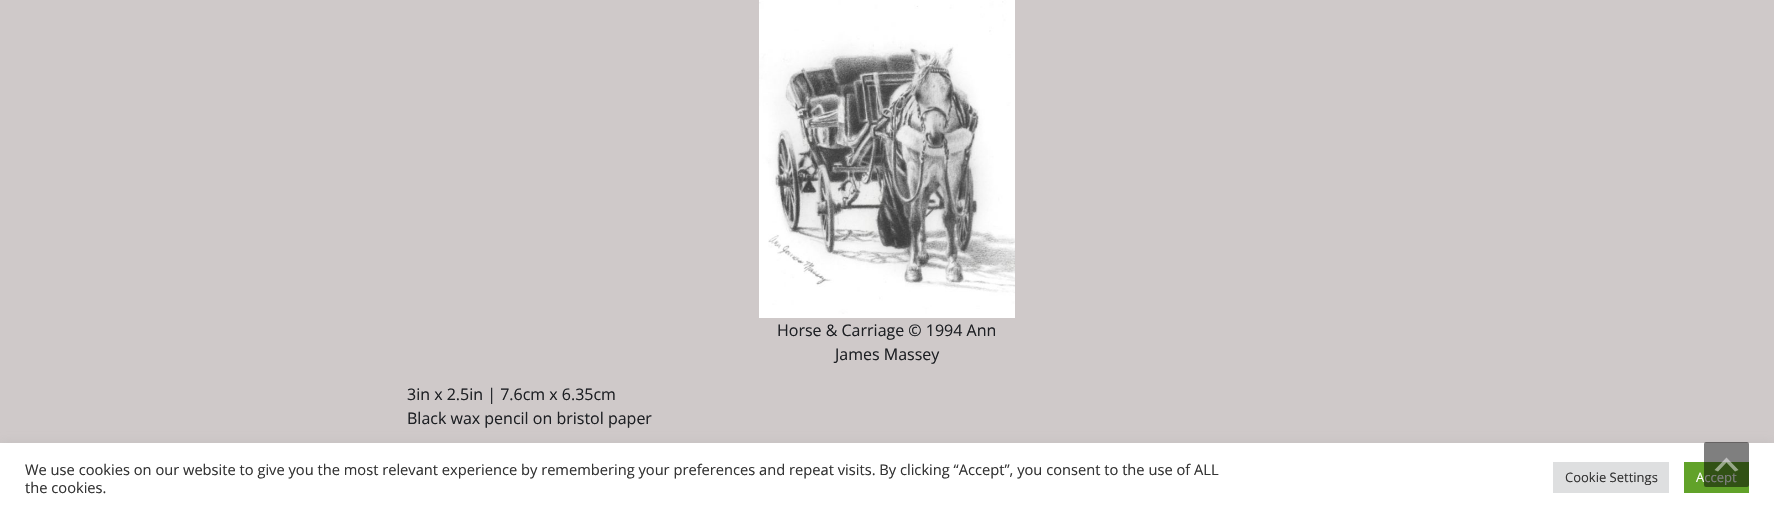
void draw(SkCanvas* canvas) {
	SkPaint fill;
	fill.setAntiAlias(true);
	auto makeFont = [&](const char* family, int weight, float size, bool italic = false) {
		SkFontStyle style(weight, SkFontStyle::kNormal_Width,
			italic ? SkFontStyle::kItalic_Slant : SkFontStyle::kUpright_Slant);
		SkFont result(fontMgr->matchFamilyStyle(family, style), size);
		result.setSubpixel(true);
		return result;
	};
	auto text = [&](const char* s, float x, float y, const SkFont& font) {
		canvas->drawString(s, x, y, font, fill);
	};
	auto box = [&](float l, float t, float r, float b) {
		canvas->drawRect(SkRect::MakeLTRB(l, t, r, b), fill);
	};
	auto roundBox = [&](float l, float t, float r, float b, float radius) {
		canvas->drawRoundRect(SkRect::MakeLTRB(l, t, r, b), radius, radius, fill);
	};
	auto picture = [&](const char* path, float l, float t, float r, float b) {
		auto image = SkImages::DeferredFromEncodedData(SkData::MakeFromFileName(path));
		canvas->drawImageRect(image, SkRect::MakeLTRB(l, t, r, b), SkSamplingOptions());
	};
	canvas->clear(0xFFCFC9C9);
	picture("image0.png", 759, 0, 1015, 318);
	fill.setColor(0x4DACABAB);
	fill.setMaskFilter(SkMaskFilter::MakeBlur(kNormal_SkBlurStyle, 5));
	canvas->drawRect(SkRect::MakeLTRB(0, 442, 1774, 511), fill);
	fill.setMaskFilter(nullptr);
	fill.setColor(0xFFFFFFFF);
	box(0, 443, 1774, 512);
	fill.setColor(0xFFDEDFE0);
	box(1553, 462, 1669, 493);
	fill.setColor(0xFF61A229);
	box(1684, 462, 1749, 493);
	auto font1 = makeFont("Open Sans", 400, 16);
	fill.setColor(0xFF1E2024);
	text("Horse & Carriage © 1994 Ann", 777, 336, font1);
	text("James Massey", 835, 360, font1);
	text("3in x 2.5in | 7.6cm x 6.35cm", 407, 400, font1);
	text("Black wax pencil on bristol paper", 407, 424, font1);
	auto font2 = makeFont("Open Sans", 400, 14.67f);
	fill.setColor(0xFF333333);
	text("We use cookies on our website to give you the most relevant experience by remembering your preferences and repeat visits. By clicking “Accept”, you consent to the use of ALL", 25, 475, font2);
	text("the cookies.", 25, 493, font2);
	auto font3 = makeFont("Open Sans", 400, 13);
	text("Cookie Settings", 1565, 482, font3);
	fill.setColor(0xFFFFFFFF);
	text("Accept", 1696, 482, font3);
	fill.setColor(0x80000000);
	roundBox(1704, 442, 1749, 487, 2);
	fill.setColor(0x80FFFFFF);
	canvas->drawPath(SkPathBuilder().moveTo(1735, 471.5f).lineTo(1726.5f, 462.5f).lineTo(1718, 471.5f).lineTo(1714.5f, 470).lineTo(1726.5f, 457.5f).lineTo(1738.5f, 470).close().detach(), fill);
}
